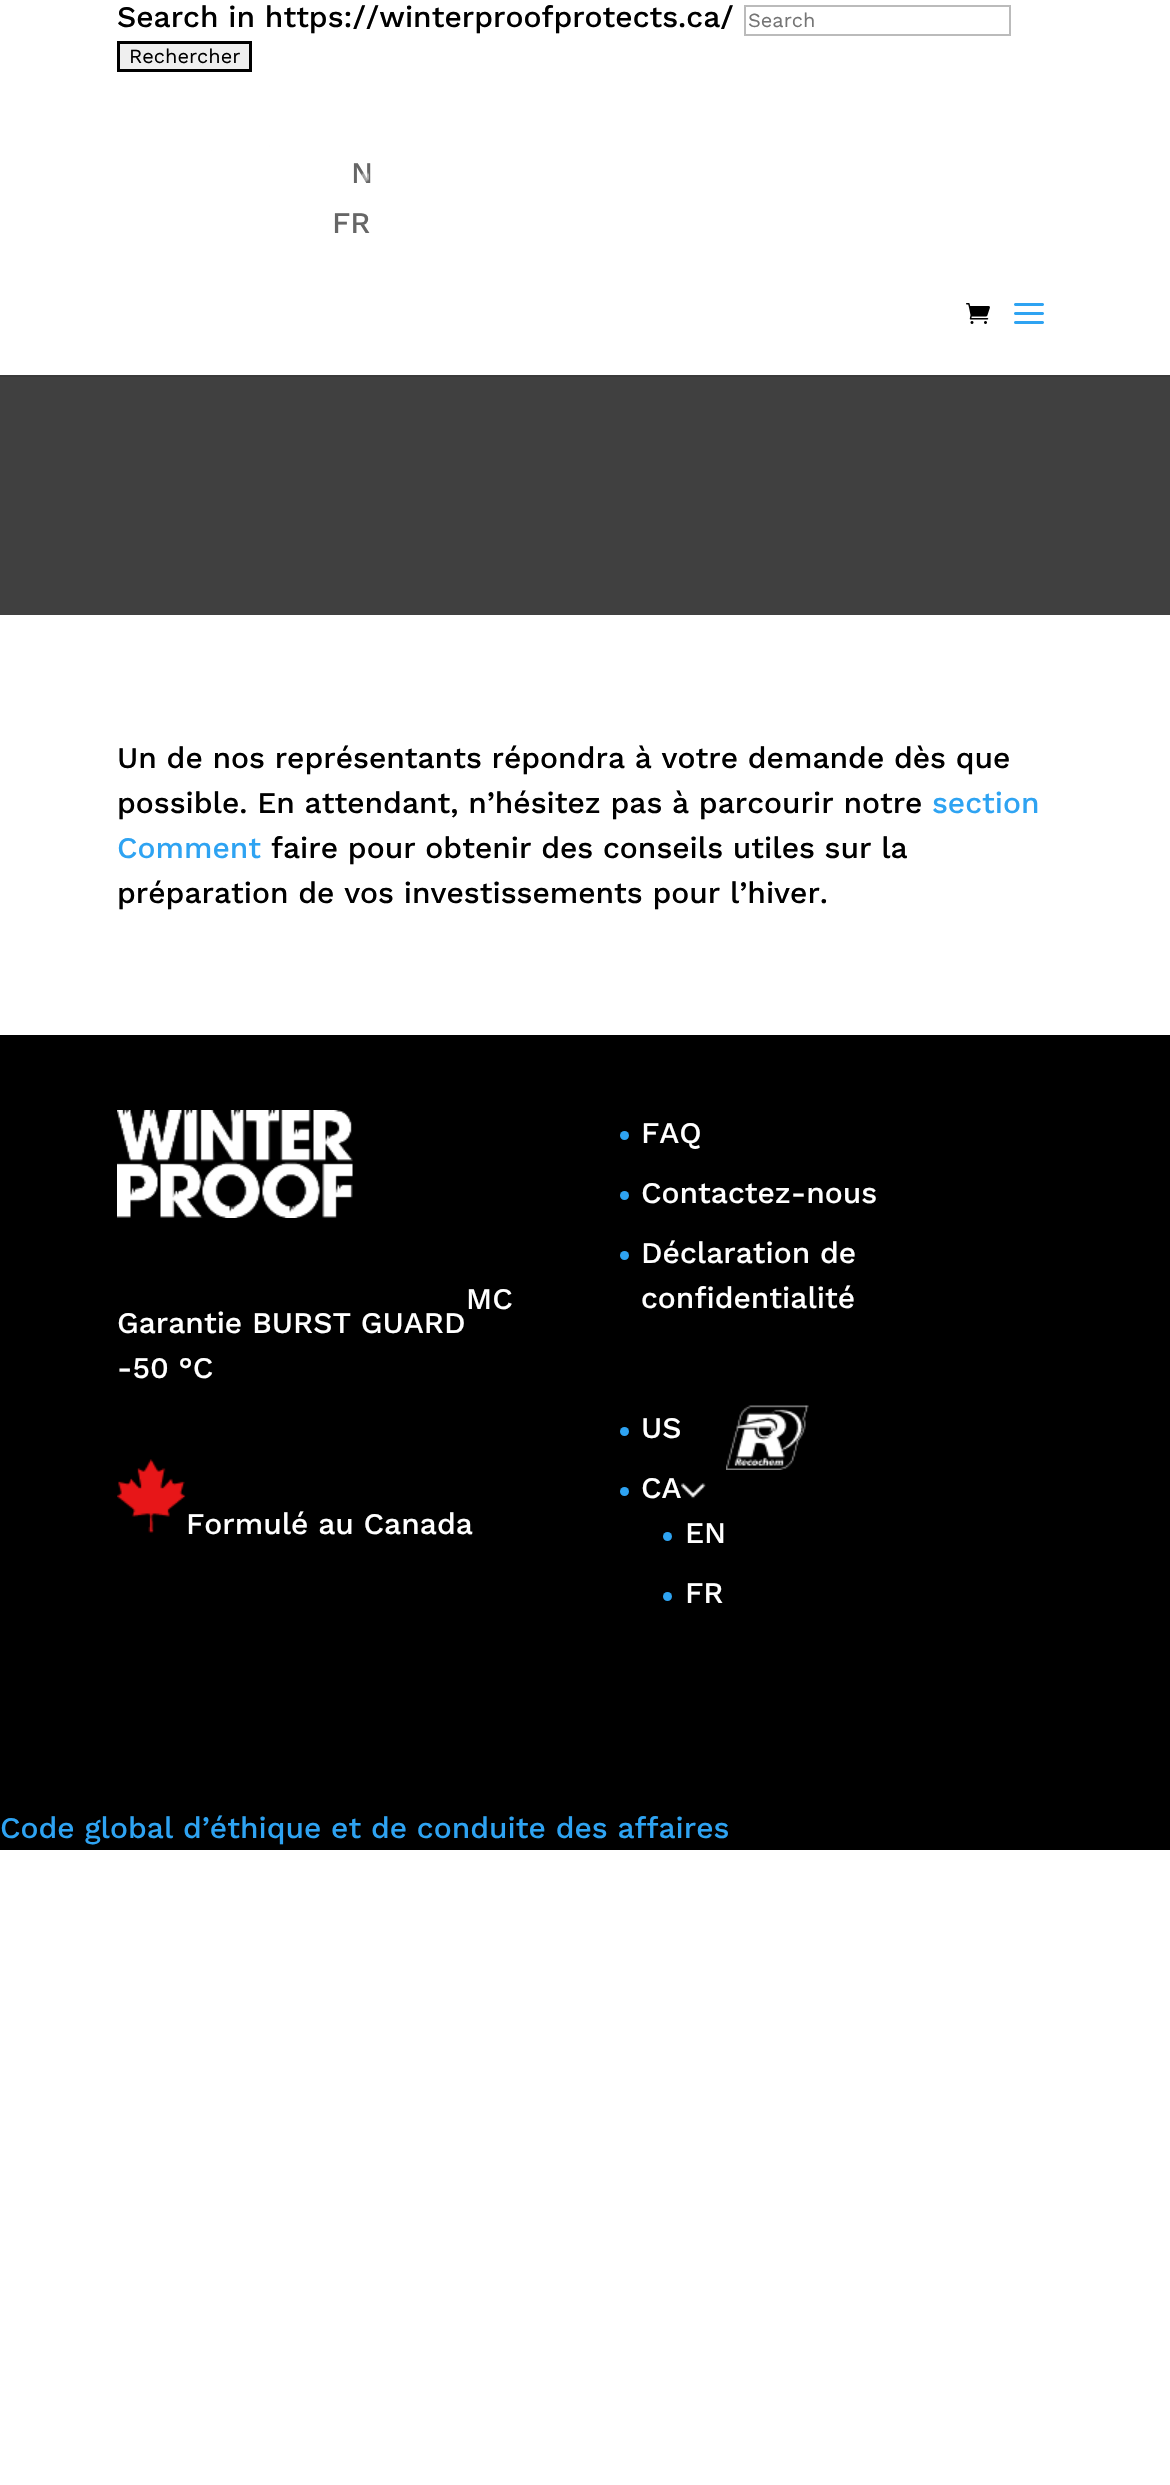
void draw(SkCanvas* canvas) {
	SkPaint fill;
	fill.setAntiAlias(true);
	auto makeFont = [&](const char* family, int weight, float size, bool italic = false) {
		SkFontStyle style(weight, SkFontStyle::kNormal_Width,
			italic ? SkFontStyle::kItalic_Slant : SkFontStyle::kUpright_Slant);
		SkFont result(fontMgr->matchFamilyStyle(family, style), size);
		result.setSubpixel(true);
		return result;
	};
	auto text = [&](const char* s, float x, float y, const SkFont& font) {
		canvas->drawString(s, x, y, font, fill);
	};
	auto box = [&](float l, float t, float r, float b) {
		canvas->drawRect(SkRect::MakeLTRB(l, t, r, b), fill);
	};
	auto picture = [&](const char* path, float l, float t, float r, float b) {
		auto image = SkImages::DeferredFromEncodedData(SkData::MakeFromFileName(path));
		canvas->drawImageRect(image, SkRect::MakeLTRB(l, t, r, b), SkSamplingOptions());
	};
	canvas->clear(0xFFFFFFFF);
	fill.setColor(0xFF404040);
	box(0, 375, 1170, 615);
	fill.setColor(0x1A000000);
	box(0, 375, 1170, 377);
	fill.setStyle(SkPaint::kStroke_Style);
	fill.setStrokeWidth(2);
	fill.setColor(0xFFBBBBBB);
	canvas->drawRect(SkRect::MakeLTRB(745, 6, 1010, 35), fill);
	fill.setStyle(SkPaint::kFill_Style);
	fill.setColor(0xFFEFEFEF);
	canvas->drawRect(SkRect::MakeLTRB(118.5f, 42.5f, 250.5f, 70.5f), fill);
	fill.setStyle(SkPaint::kStroke_Style);
	fill.setStrokeWidth(3);
	fill.setColor(0xFF000000);
	canvas->drawRect(SkRect::MakeLTRB(118.5f, 42.5f, 250.5f, 70.5f), fill);
	picture("image1.png", 966, 303, 990, 324);
	picture("image2.png", 1014, 303, 1044, 324);
	fill.setStyle(SkPaint::kFill_Style);
	box(0, 1035, 1170, 1850);
	picture("image3.png", 117, 1110, 353, 1218);
	picture("image4.png", 117, 1459, 186, 1533);
	fill.setColor(0xFF2EA3F2);
	canvas->drawCircle(624.5f, 1135.5f, 4.5f, fill);
	canvas->drawCircle(624.5f, 1195.5f, 4.5f, fill);
	canvas->drawCircle(624.5f, 1255.5f, 4.5f, fill);
	canvas->drawCircle(624.5f, 1431.5f, 4.5f, fill);
	canvas->drawCircle(624.5f, 1491.5f, 4.5f, fill);
	picture("image5.png", 681, 1483, 706, 1499);
	canvas->drawCircle(667.5f, 1536.5f, 4.5f, fill);
	canvas->drawCircle(667.5f, 1596.5f, 4.5f, fill);
	picture("image6.png", 726, 1405, 809, 1470);
	auto font1 = makeFont("Work Sans", 500, 30);
	fill.setColor(0xFF000000);
	text("Search in https://winterproofprotects.ca/", 117, 27, font1);
	auto font2 = makeFont("Work Sans", 400, 20);
	fill.setColor(0xFF757575);
	text("Search", 748, 27, font2);
	fill.setColor(0xFF000000);
	text("Rechercher", 129, 63, font2);
	fill.setColor(0xFF666666);
	text("N", 351, 183, font1);
	text("FR", 332, 233, font1);
	picture("image0.png", 128, 78, 369, 182);
	fill.setColor(0xFF000000);
	text("Un de nos représentants répondra à votre demande dès que", 117, 768, font1);
	text("possible. En attendant, n’hésitez pas à parcourir notre", 117, 813, font1);
	fill.setColor(0xFF2EA3F2);
	text("section", 932, 813, font1);
	text("Comment", 117, 858, font1);
	fill.setColor(0xFF000000);
	text("faire pour obtenir des conseils utiles sur la", 271, 858, font1);
	text("préparation de vos investissements pour l’hiver.", 117, 903, font1);
	fill.setColor(0xFFFFFFFF);
	text("MC", 466, 1309, font1);
	text("Garantie BURST GUARD", 117, 1333, font1);
	text("-50 °C", 117, 1378, font1);
	text("Formulé au Canada", 186, 1534, font1);
	text("FAQ", 641, 1143, font1);
	text("Contactez-nous", 641, 1203, font1);
	text("Déclaration de", 641, 1263, font1);
	text("confidentialité", 641, 1308, font1);
	text("US", 641, 1438, font1);
	text("CA", 641, 1498, font1);
	text("EN", 685, 1543, font1);
	text("FR", 685, 1603, font1);
	fill.setColor(0xFF2EA3F2);
	text("Code global d’éthique et de conduite des affaires", 0, 1838, font1);
}
